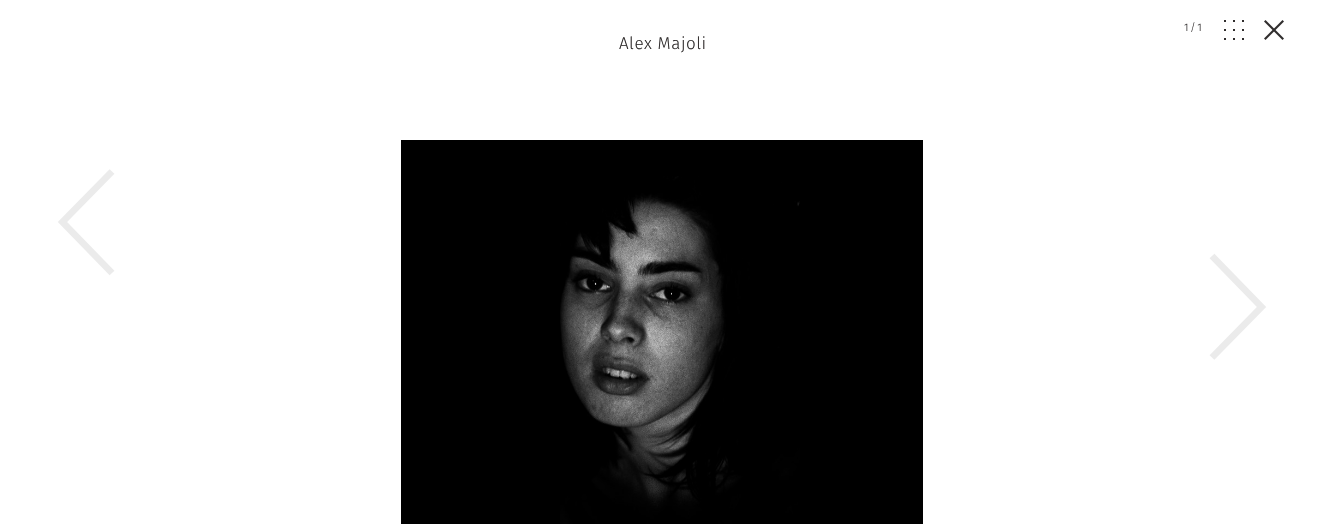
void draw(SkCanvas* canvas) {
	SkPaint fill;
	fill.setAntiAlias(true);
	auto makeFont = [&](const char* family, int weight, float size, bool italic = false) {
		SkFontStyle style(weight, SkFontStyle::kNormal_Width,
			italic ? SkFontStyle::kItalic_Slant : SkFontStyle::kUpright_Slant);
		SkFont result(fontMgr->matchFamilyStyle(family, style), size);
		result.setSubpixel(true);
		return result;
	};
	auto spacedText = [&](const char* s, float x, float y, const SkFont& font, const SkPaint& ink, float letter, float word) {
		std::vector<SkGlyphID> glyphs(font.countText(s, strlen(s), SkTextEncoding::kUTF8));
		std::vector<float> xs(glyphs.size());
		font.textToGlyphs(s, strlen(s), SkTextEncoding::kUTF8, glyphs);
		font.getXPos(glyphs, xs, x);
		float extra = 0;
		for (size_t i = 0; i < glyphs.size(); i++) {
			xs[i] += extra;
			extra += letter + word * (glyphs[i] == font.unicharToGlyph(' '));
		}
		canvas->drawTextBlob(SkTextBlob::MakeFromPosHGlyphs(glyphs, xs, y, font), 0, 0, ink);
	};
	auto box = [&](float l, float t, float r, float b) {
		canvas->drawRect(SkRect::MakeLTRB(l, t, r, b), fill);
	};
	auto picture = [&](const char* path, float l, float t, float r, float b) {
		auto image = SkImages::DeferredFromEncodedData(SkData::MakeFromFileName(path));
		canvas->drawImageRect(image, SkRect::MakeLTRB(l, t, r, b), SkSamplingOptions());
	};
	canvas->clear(0xFFFFFFFF);
	picture("image0.png", 1224, 20, 1244, 40);
	fill.setColor(0xFF302D2D);
	canvas->drawPath(SkPathBuilder().moveTo(1265.5f, 20).lineTo(1284, 38.5f).lineTo(1282.5f, 40).lineTo(1264, 21.5f).close().detach(), fill);
	canvas->drawPath(SkPathBuilder().moveTo(1264, 38.5f).lineTo(1282.5f, 20).lineTo(1284, 21.5f).lineTo(1265.5f, 40).close().detach(), fill);
	fill.setStyle(SkPaint::kStroke_Style);
	fill.setStrokeWidth(6.7f);
	fill.setColor(0xFFEBEBEB);
	canvas->drawPath(SkPathBuilder().moveTo(112, 171.5f).lineTo(62.5f, 222).lineTo(112, 273).detach(), fill);
	fill.setStyle(SkPaint::kFill_Style);
	fill.setColor(0xFF000000);
	box(401, 140, 923, 524);
	picture("image1.png", 560, 176, 800, 524);
	fill.setStyle(SkPaint::kStroke_Style);
	fill.setColor(0xFFEBEBEB);
	canvas->drawPath(SkPathBuilder().moveTo(1212, 357.5f).lineTo(1261.5f, 307).lineTo(1212, 256).detach(), fill);
	auto font1 = makeFont("Fira Sans", 300, 11);
	fill.setStyle(SkPaint::kFill_Style);
	fill.setColor(0xFF302D2D);
	spacedText("1/1", 1184, 31, font1, fill, 1.5f, 0);
	auto font2 = makeFont("Fira Sans", 300, 17);
	spacedText("Alex Majoli", 619, 49, font2, fill, 0.5f, 0);
}
